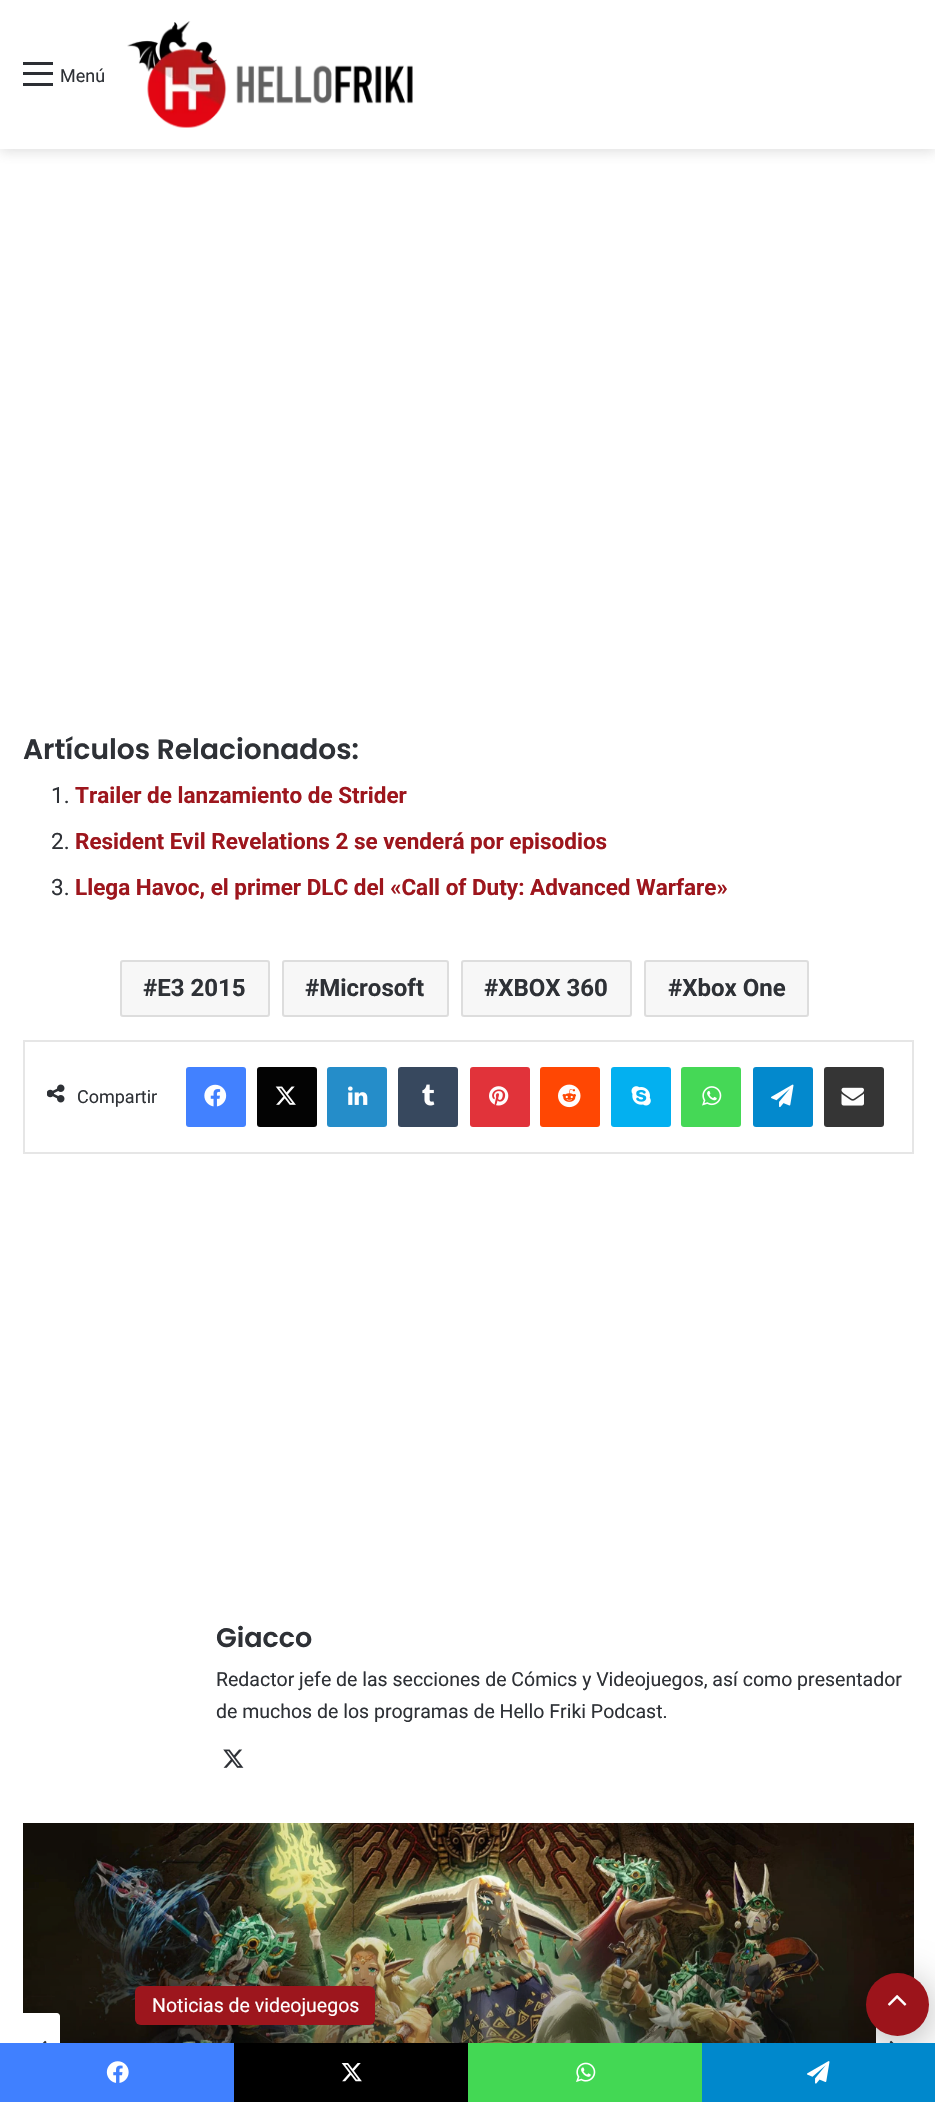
void draw(SkCanvas* canvas) {
	SkPaint fill;
	fill.setAntiAlias(true);
	auto makeFont = [&](const char* family, int weight, float size, bool italic = false) {
		SkFontStyle style(weight, SkFontStyle::kNormal_Width,
			italic ? SkFontStyle::kItalic_Slant : SkFontStyle::kUpright_Slant);
		SkFont result(fontMgr->matchFamilyStyle(family, style), size);
		result.setSubpixel(true);
		return result;
	};
	auto text = [&](const char* s, float x, float y, const SkFont& font) {
		canvas->drawString(s, x, y, font, fill);
	};
	auto box = [&](float l, float t, float r, float b) {
		canvas->drawRect(SkRect::MakeLTRB(l, t, r, b), fill);
	};
	auto roundBox = [&](float l, float t, float r, float b, float radius) {
		canvas->drawRoundRect(SkRect::MakeLTRB(l, t, r, b), radius, radius, fill);
	};
	auto picture = [&](const char* path, float l, float t, float r, float b) {
		auto image = SkImages::DeferredFromEncodedData(SkData::MakeFromFileName(path));
		canvas->drawImageRect(image, SkRect::MakeLTRB(l, t, r, b), SkSamplingOptions());
	};
	canvas->clear(0xFFFFFFFF);
	canvas->save();
	canvas->clipPath(SkPathBuilder(SkPathFillType::kEvenOdd).moveTo(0, 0).lineTo(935, 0).lineTo(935, 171).lineTo(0, 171).close().moveTo(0, 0).lineTo(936, 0).lineTo(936, 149).lineTo(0, 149).close().detach(), true);
	fill.setColor(0x33636363);
	fill.setMaskFilter(SkMaskFilter::MakeBlur(kNormal_SkBlurStyle, 6));
	canvas->drawRect(SkRect::MakeLTRB(0, 3, 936, 152), fill);
	fill.setMaskFilter(nullptr);
	canvas->restore();
	fill.setColor(0xF2FFFFFF);
	box(0, 148, 935, 149);
	fill.setColor(0xFF2C2F34);
	box(23, 72, 53, 75);
	box(23, 62, 53, 65);
	box(23, 83, 53, 86);
	picture("image0.png", 127, 21, 413, 128);
	fill.setColor(0xFFF7F7F7);
	roundBox(120, 960, 270, 1017, 3);
	fill.setStyle(SkPaint::kStroke_Style);
	fill.setStrokeWidth(2);
	fill.setColor(0x1A030303);
	canvas->drawRoundRect(SkRect::MakeLTRB(121, 961, 269, 1016), 2, 2, fill);
	fill.setStyle(SkPaint::kFill_Style);
	fill.setColor(0xFFF7F7F7);
	roundBox(282, 960, 449, 1017, 3);
	fill.setStyle(SkPaint::kStroke_Style);
	fill.setColor(0x1A030303);
	canvas->drawRoundRect(SkRect::MakeLTRB(283, 961, 448, 1016), 2, 2, fill);
	fill.setStyle(SkPaint::kFill_Style);
	fill.setColor(0xFFF7F7F7);
	roundBox(461, 960, 632, 1017, 3);
	fill.setStyle(SkPaint::kStroke_Style);
	fill.setColor(0x1A030303);
	canvas->drawRoundRect(SkRect::MakeLTRB(462, 961, 631, 1016), 2, 2, fill);
	fill.setStyle(SkPaint::kFill_Style);
	fill.setColor(0xFFF7F7F7);
	roundBox(644, 960, 809, 1017, 3);
	fill.setStyle(SkPaint::kStroke_Style);
	fill.setColor(0x1A030303);
	canvas->drawRoundRect(SkRect::MakeLTRB(645, 961, 808, 1016), 2, 2, fill);
	fill.setColor(0xFFE6E6E6);
	canvas->drawRect(SkRect::MakeLTRB(24, 1041, 913, 1153), fill);
	picture("image1.png", 47, 1084, 65, 1103);
	fill.setStyle(SkPaint::kFill_Style);
	fill.setColor(0xFF4281FF);
	roundBox(186, 1067, 246, 1127, 3);
	picture("image2.png", 204, 1084, 227, 1107);
	fill.setColor(0xFF030303);
	roundBox(257, 1067, 317, 1127, 3);
	picture("image3.png", 275, 1086, 296, 1105);
	fill.setColor(0xFF258DC9);
	roundBox(327, 1067, 387, 1127, 3);
	picture("image4.png", 348, 1086, 368, 1105);
	fill.setColor(0xFF37485E);
	roundBox(398, 1067, 458, 1127, 3);
	picture("image5.png", 422, 1084, 435, 1106);
	fill.setColor(0xFFE1333A);
	roundBox(470, 1067, 530, 1127, 3);
	picture("image6.png", 489, 1086, 509, 1106);
	fill.setColor(0xFFFF4703);
	roundBox(540, 1067, 600, 1127, 3);
	picture("image7.png", 558, 1084, 581, 1108);
	fill.setColor(0xFF03B0F0);
	roundBox(611, 1067, 671, 1127, 3);
	picture("image8.png", 631, 1086, 651, 1106);
	fill.setColor(0xFF45D856);
	roundBox(681, 1067, 741, 1127, 3);
	picture("image9.png", 702, 1086, 722, 1106);
	fill.setColor(0xFF0389CD);
	roundBox(753, 1067, 813, 1127, 3);
	picture("image10.png", 771, 1084, 794, 1108);
	fill.setColor(0xFF353535);
	roundBox(824, 1067, 884, 1127, 3);
	picture("image11.png", 841, 1087, 864, 1106);
	picture("image12.png", 223, 1749, 244, 1768);
	picture("image13.png", 23, 1823, 914, 2043);
	fill.setColor(0xFF9D161D);
	roundBox(135, 1986, 375, 2025, 6);
	fill.setColor(0xFFFFFFFF);
	canvas->drawPath(SkPathBuilder().moveTo(23, 2013).lineTo(57, 2013).cubicTo(58.5f, 2013, 60, 2014.5f, 60, 2016).lineTo(60, 2079).cubicTo(60, 2080.5f, 58.5f, 2082, 57, 2082).lineTo(23, 2082).close().detach(), fill);
	picture("image14.png", 42, 2040, 47, 2043);
	box(876, 2027, 914, 2043);
	picture("image15.png", 889, 2040, 894, 2043);
	fill.setColor(0x4D000000);
	fill.setMaskFilter(SkMaskFilter::MakeBlur(kNormal_SkBlurStyle, 19));
	canvas->drawRoundRect(SkRect::MakeLTRB(866, 1980, 929, 2043), 31.5f, 31.5f, fill);
	fill.setMaskFilter(nullptr);
	fill.setColor(0xFF9C141B);
	canvas->drawCircle(897.5f, 2004.5f, 31.5f, fill);
	picture("image16.png", 887, 1995, 907, 2006);
	fill.setColor(0xFF4080FF);
	box(0, 2043, 234, 2102);
	picture("image17.png", 106, 2061, 129, 2083);
	fill.setColor(0xFF000000);
	box(234, 2043, 468, 2102);
	picture("image18.png", 341, 2063, 362, 2082);
	fill.setColor(0xFF43D854);
	box(468, 2043, 702, 2102);
	picture("image19.png", 576, 2062, 596, 2082);
	fill.setColor(0xFF0088CC);
	box(702, 2043, 935, 2102);
	picture("image20.png", 807, 2061, 830, 2084);
	auto font1 = makeFont("Roboto", 400, 18);
	fill.setColor(0xFF2E3136);
	text("Menú", 60, 82, font1);
	auto font2 = makeFont("Poppins", 600, 28.1f);
	text("Artículos Relacionados:", 23, 759, font2);
	auto font3 = makeFont("Roboto", 400, 22.5f);
	text("1.", 51, 803, font3);
	auto font4 = makeFont("Roboto", 700, 22.5f);
	fill.setColor(0xFF9D161D);
	text("Trailer de lanzamiento de Strider", 75, 803, font4);
	fill.setColor(0xFF2E3136);
	text("2.", 51, 849, font3);
	fill.setColor(0xFF9D161D);
	text("Resident Evil Revelations 2 se venderá por episodios", 75, 849, font4);
	fill.setColor(0xFF2E3136);
	text("3.", 51, 895, font3);
	fill.setColor(0xFF9D161D);
	text("Llega Havoc, el primer DLC del «Call of Duty: Advanced Warfare»", 75, 895, font4);
	auto font5 = makeFont("Roboto", 700, 24);
	fill.setColor(0xFF2E3136);
	text("#E3 2015", 143, 996, font5);
	text("#Microsoft", 305, 996, font5);
	text("#XBOX 360", 484, 996, font5);
	text("#Xbox One", 668, 996, font5);
	text("Compartir", 77, 1103, font1);
	auto font6 = makeFont("Poppins", 600, 27);
	text("Giacco", 216, 1647, font6);
	auto font7 = makeFont("Roboto", 400, 19.5f);
	text("Redactor jefe de las secciones de Cómics y Videojuegos, así como presentador", 216, 1686, font7);
	text("de muchos de los programas de Hello Friki Podcast.", 216, 1718, font7);
	fill.setColor(0xFFFFFFFF);
	text("Noticias de videojuegos", 152, 2012, font7);
}
